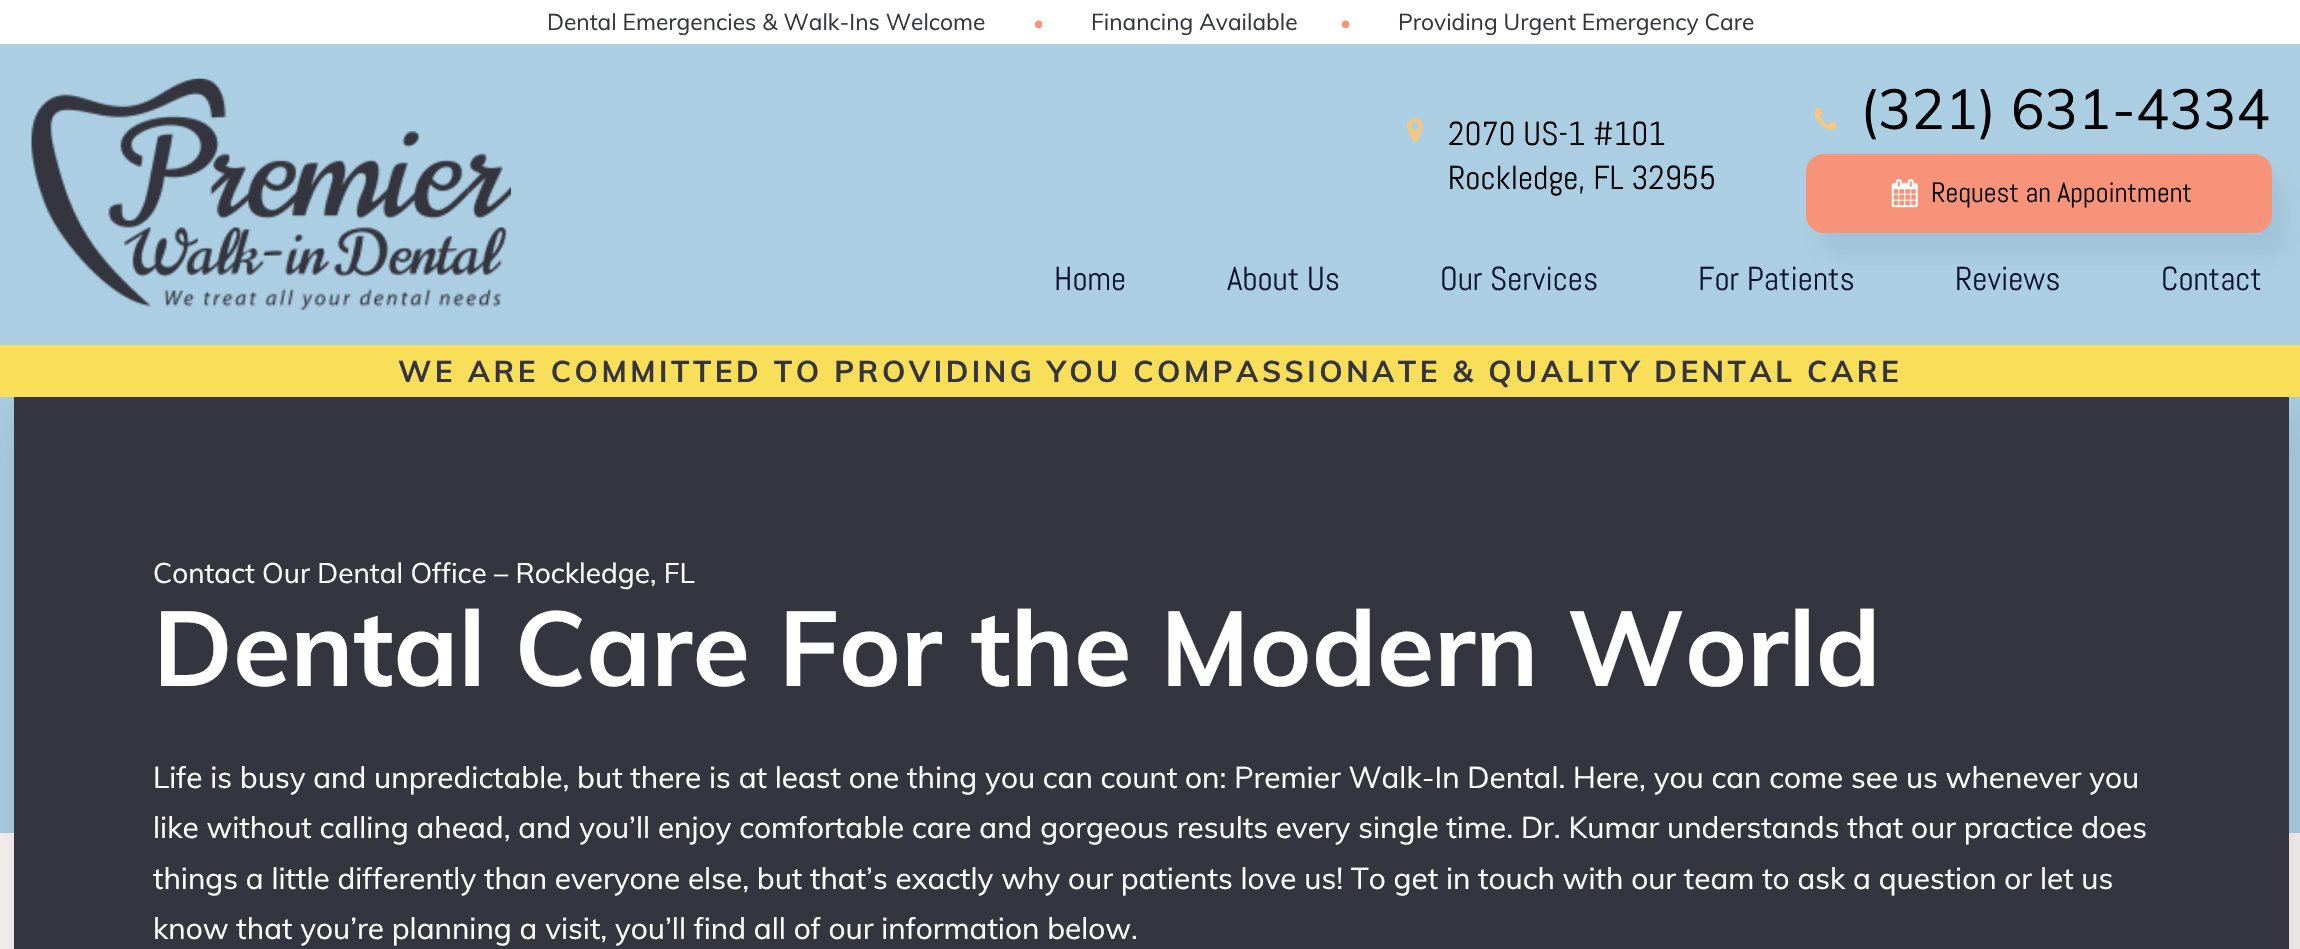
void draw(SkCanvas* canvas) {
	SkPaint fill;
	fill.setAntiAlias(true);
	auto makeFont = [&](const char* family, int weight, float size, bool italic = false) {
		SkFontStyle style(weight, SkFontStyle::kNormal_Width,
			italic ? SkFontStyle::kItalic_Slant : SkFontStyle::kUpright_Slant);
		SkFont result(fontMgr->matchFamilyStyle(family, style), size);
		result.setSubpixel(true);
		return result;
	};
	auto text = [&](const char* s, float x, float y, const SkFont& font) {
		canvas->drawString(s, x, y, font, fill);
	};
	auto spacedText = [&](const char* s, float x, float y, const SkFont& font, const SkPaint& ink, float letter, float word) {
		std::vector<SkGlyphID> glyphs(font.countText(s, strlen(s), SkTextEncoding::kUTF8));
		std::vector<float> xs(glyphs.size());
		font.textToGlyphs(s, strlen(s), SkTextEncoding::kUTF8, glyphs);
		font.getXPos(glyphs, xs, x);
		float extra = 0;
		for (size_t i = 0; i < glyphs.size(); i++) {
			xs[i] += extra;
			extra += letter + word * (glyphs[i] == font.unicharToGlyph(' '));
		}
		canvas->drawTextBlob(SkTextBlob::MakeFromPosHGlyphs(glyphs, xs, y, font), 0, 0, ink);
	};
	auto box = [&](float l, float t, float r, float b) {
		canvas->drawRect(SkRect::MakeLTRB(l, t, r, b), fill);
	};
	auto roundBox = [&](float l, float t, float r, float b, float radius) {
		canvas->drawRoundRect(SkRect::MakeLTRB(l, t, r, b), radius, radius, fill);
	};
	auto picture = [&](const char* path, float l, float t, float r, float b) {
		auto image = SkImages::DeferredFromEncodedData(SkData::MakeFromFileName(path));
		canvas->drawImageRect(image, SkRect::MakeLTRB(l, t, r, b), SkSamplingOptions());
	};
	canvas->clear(0xFFF9F4F1);
	fill.setColor(0xFFABCEE3);
	box(0, 397, 2300, 833);
	fill.setColor(0x26181718);
	fill.setMaskFilter(SkMaskFilter::MakeBlur(kNormal_SkBlurStyle, 23.5f));
	canvas->drawRect(SkRect::MakeLTRB(18, 403, 2293, 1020), fill);
	fill.setMaskFilter(nullptr);
	fill.setColor(0xFFABCEE3);
	box(0, 44, 2300, 345);
	fill.setColor(0xFFFFFFFF);
	box(0, 0, 2300, 44);
	picture("image0.png", 31, 78, 511, 310);
	picture("image1.png", 1407, 118, 1423, 143);
	picture("image2.png", 1814, 107, 1837, 130);
	fill.setColor(0x1A466684);
	fill.setMaskFilter(SkMaskFilter::MakeBlur(kNormal_SkBlurStyle, 9));
	canvas->drawRoundRect(SkRect::MakeLTRB(1820, 177, 2286, 256), 18, 18, fill);
	fill.setMaskFilter(nullptr);
	fill.setColor(0xFFF69379);
	roundBox(1806, 154, 2272, 233, 18);
	picture("image3.png", 1891, 179, 1918, 208);
	fill.setColor(0xFFF9DE59);
	box(0, 345, 2300, 397);
	fill.setColor(0xFF34353E);
	box(14, 397, 2289, 949);
	auto font1 = makeFont("Muli", 400, 22.75f);
	text("Dental Emergencies & Walk-Ins Welcome", 547, 30, font1);
	auto font2 = makeFont("Muli", 400, 21);
	fill.setColor(0xFFF69379);
	text("•", 1033, 30, font2);
	fill.setColor(0xFF34353E);
	text("Financing Available", 1091, 30, font1);
	fill.setColor(0xFFF69379);
	text("•", 1340, 30, font2);
	fill.setColor(0xFF34353E);
	text("Providing Urgent Emergency Care", 1398, 30, font1);
	auto font3 = makeFont("Abel", 400, 33.25f);
	fill.setColor(0xFF000000);
	text("2070 US-1 #101", 1448, 145, font3);
	text("Rockledge, FL 32955", 1448, 189, font3);
	auto font4 = makeFont("Muli", 400, 56);
	text("(321) 631-4334", 1860, 129, font4);
	auto font5 = makeFont("Abel", 400, 28);
	text("Request an Appointment", 1931, 202, font5);
	fill.setColor(0xFF0D1433);
	text("Home", 1054, 290, font3);
	text("About Us", 1227, 290, font3);
	text("Our Services", 1440, 290, font3);
	text("For Patients", 1698, 290, font3);
	text("Reviews", 1955, 290, font3);
	text("Contact", 2161, 290, font3);
	auto font6 = makeFont("Muli", 700, 29.75f);
	fill.setColor(0xFF34353E);
	spacedText("WE ARE COMMITTED TO PROVIDING YOU COMPASSIONATE & QUALITY DENTAL CARE", 398, 382, font6, fill, 3.5f, 0);
	auto font7 = makeFont("Muli", 400, 28);
	fill.setColor(0xFFFFFFFF);
	text("Contact Our Dental Office – Rockledge, FL", 153, 583, font7);
	auto font8 = makeFont("Muli", 700, 105);
	text("Dental Care For the Modern World", 153, 686, font8);
	auto font9 = makeFont("Muli", 400, 29.75f);
	text("Life is busy and unpredictable, but there is at least one thing you can count on: Premier Walk-In Dental. Here, you can come see us whenever you", 153, 788, font9);
	text("like without calling ahead, and you’ll enjoy comfortable care and gorgeous results every single time. Dr. Kumar understands that our practice does", 153, 838, font9);
	text("things a little differently than everyone else, but that’s exactly why our patients love us! To get in touch with our team to ask a question or let us", 153, 889, font9);
	text("know that you’re planning a visit, you’ll find all of our information below.", 153, 939, font9);
}
